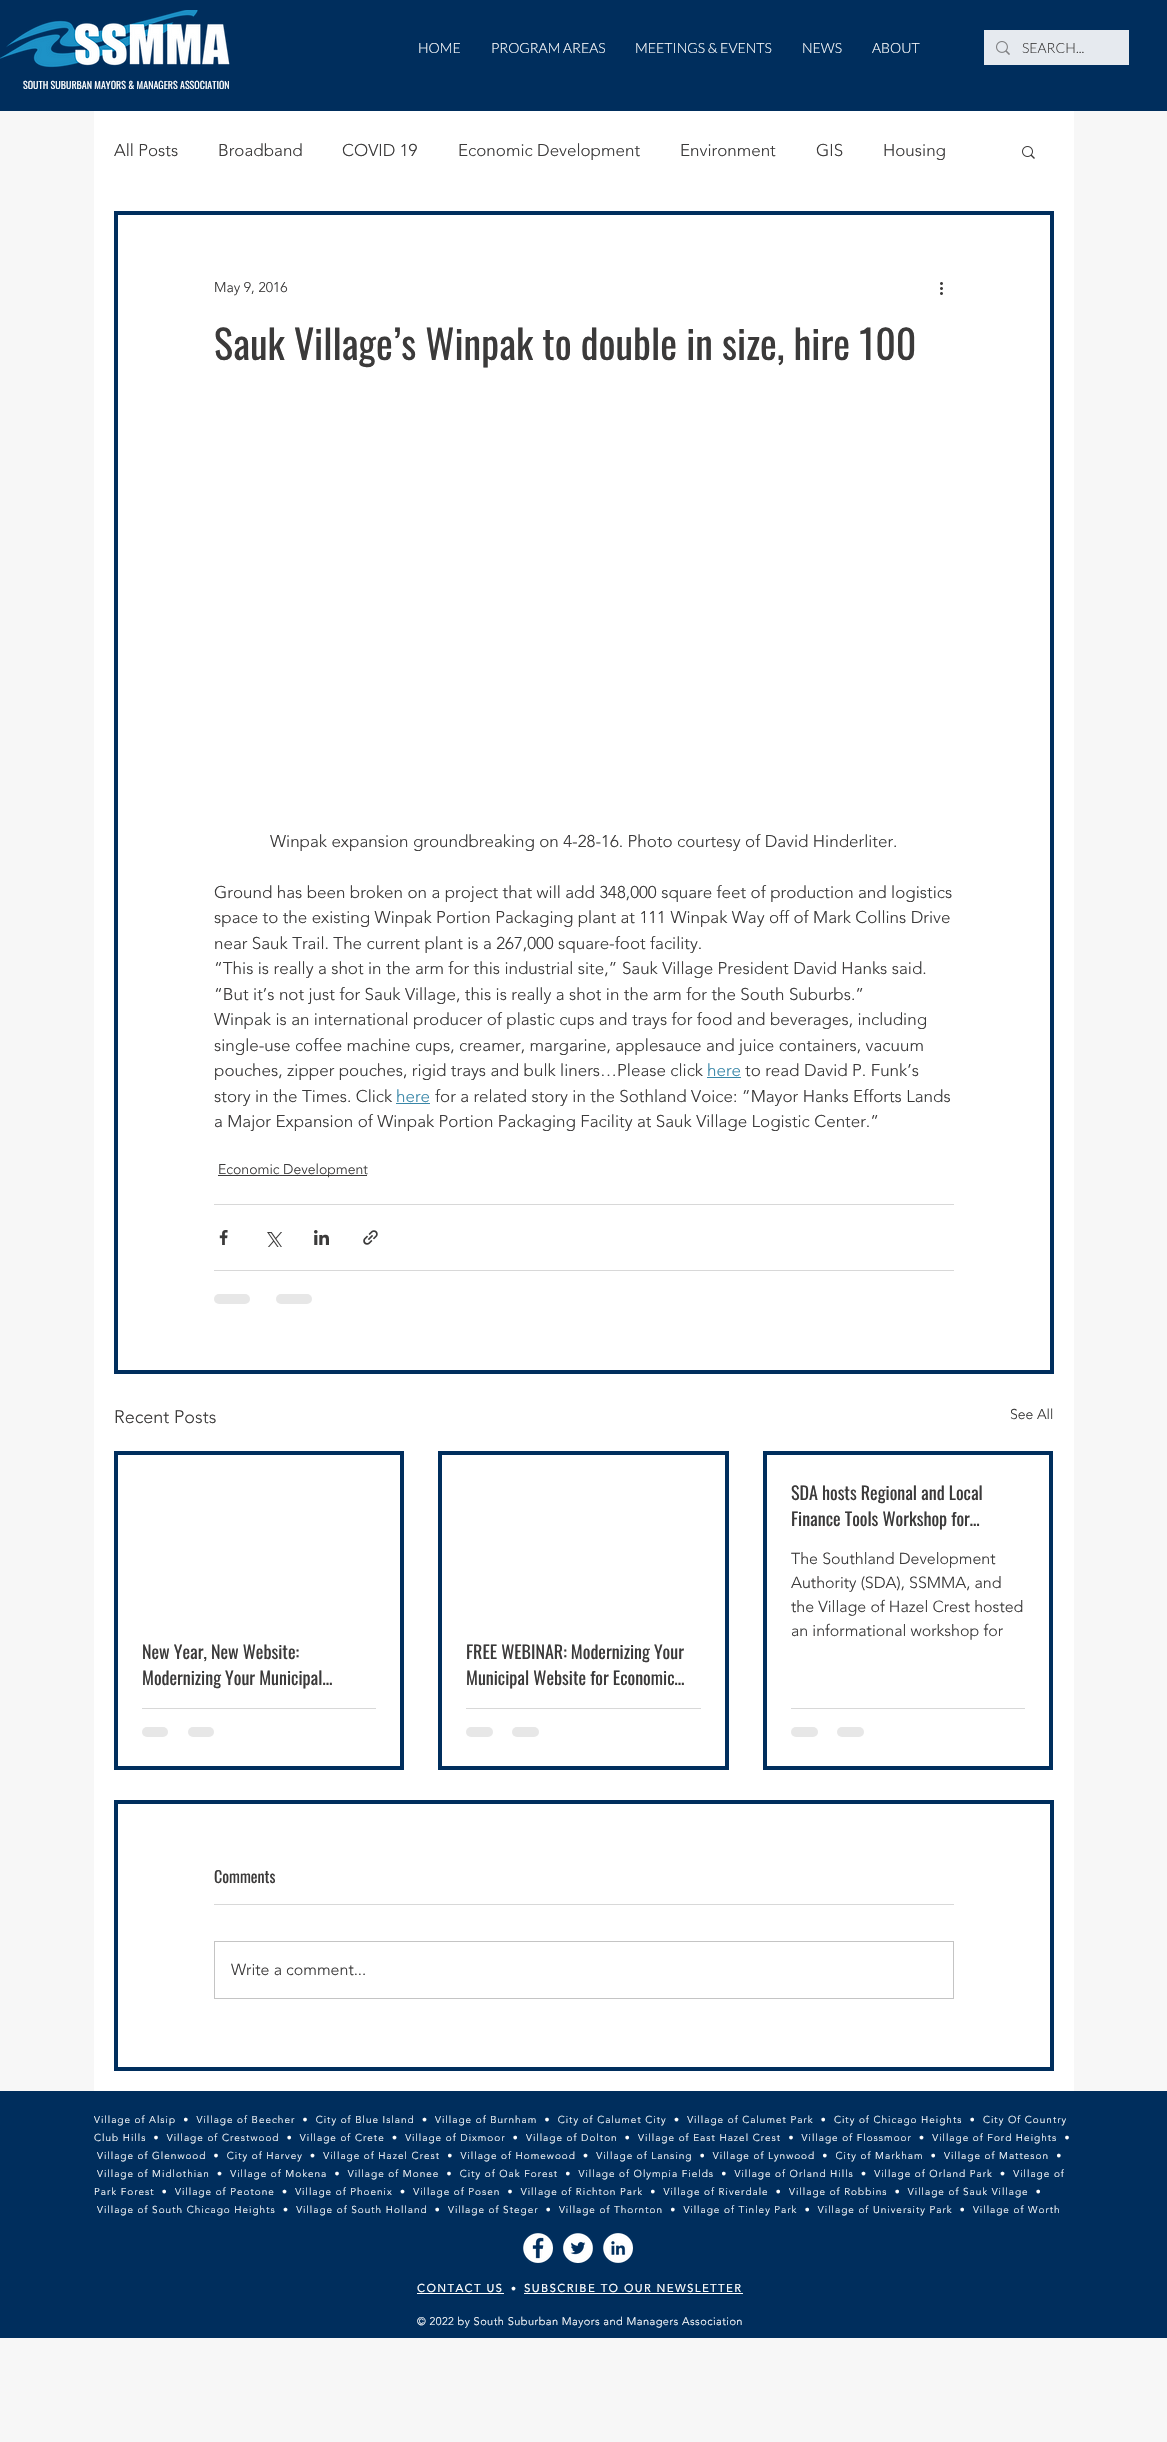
void draw(SkCanvas* canvas) {
	SkPaint fill;
	fill.setAntiAlias(true);
	auto makeFont = [&](const char* family, int weight, float size, bool italic = false) {
		SkFontStyle style(weight, SkFontStyle::kNormal_Width,
			italic ? SkFontStyle::kItalic_Slant : SkFontStyle::kUpright_Slant);
		SkFont result(fontMgr->matchFamilyStyle(family, style), size);
		result.setSubpixel(true);
		return result;
	};
	auto text = [&](const char* s, float x, float y, const SkFont& font) {
		canvas->drawString(s, x, y, font, fill);
	};
	auto spacedText = [&](const char* s, float x, float y, const SkFont& font, const SkPaint& ink, float letter, float word) {
		std::vector<SkGlyphID> glyphs(font.countText(s, strlen(s), SkTextEncoding::kUTF8));
		std::vector<float> xs(glyphs.size());
		font.textToGlyphs(s, strlen(s), SkTextEncoding::kUTF8, glyphs);
		font.getXPos(glyphs, xs, x);
		float extra = 0;
		for (size_t i = 0; i < glyphs.size(); i++) {
			xs[i] += extra;
			extra += letter + word * (glyphs[i] == font.unicharToGlyph(' '));
		}
		canvas->drawTextBlob(SkTextBlob::MakeFromPosHGlyphs(glyphs, xs, y, font), 0, 0, ink);
	};
	auto box = [&](float l, float t, float r, float b) {
		canvas->drawRect(SkRect::MakeLTRB(l, t, r, b), fill);
	};
	auto roundBox = [&](float l, float t, float r, float b, float radius) {
		canvas->drawRoundRect(SkRect::MakeLTRB(l, t, r, b), radius, radius, fill);
	};
	auto picture = [&](const char* path, float l, float t, float r, float b) {
		auto image = SkImages::DeferredFromEncodedData(SkData::MakeFromFileName(path));
		canvas->drawImageRect(image, SkRect::MakeLTRB(l, t, r, b), SkSamplingOptions());
	};
	canvas->clear(0xFFF7F7F7);
	fill.setColor(0xFF002E5D);
	box(0, 0, 1167, 111);
	picture("image0.png", 0, 10, 230, 68);
	fill.setColor(0xFFE6EAEF);
	box(984, 30, 1129, 65);
	picture("image1.png", 996, 41, 1010, 55);
	fill.setColor(0xFFFFFFFF);
	box(94, 111, 1074, 2091);
	picture("image2.png", 1022, 146, 1035, 159);
	fill.setStyle(SkPaint::kStroke_Style);
	fill.setStrokeWidth(4);
	fill.setColor(0xFF002E5D);
	canvas->drawRect(SkRect::MakeLTRB(116, 213, 1052, 1372), fill);
	picture("image3.png", 940, 282, 943, 295);
	fill.setStyle(SkPaint::kFill_Style);
	fill.setColor(0xFF3987A8);
	box(707, 1077, 741, 1078);
	box(396, 1103, 430, 1104);
	fill.setColor(0xFF3B3A3A);
	box(218, 1175, 367, 1176);
	fill.setColor(0xFFD8D8D8);
	box(214, 1204, 954, 1205);
	picture("image4.png", 219, 1230, 228, 1245);
	picture("image5.png", 267, 1232, 282, 1247);
	picture("image6.png", 314, 1230, 329, 1245);
	picture("image7.png", 363, 1230, 378, 1245);
	box(214, 1270, 954, 1271);
	fill.setColor(0xFFE7E7E7);
	roundBox(214, 1294, 250, 1304, 5);
	roundBox(276, 1294, 312, 1304, 5);
	fill.setStyle(SkPaint::kStroke_Style);
	fill.setColor(0xFF002E5D);
	canvas->drawRect(SkRect::MakeLTRB(765, 1453, 1051, 1768), fill);
	fill.setStyle(SkPaint::kFill_Style);
	fill.setColor(0xFFD8D8D8);
	box(791, 1708, 1025, 1709);
	fill.setColor(0xFFE7E7E7);
	roundBox(791, 1727, 818, 1737, 5);
	roundBox(837, 1727, 864, 1737, 5);
	fill.setStyle(SkPaint::kStroke_Style);
	fill.setColor(0xFF002E5D);
	canvas->drawRect(SkRect::MakeLTRB(116, 1453, 402, 1768), fill);
	fill.setStyle(SkPaint::kFill_Style);
	fill.setColor(0xFFD8D8D8);
	box(142, 1708, 376, 1709);
	fill.setColor(0xFFE7E7E7);
	roundBox(142, 1727, 168, 1737, 5);
	roundBox(188, 1727, 214, 1737, 5);
	fill.setStyle(SkPaint::kStroke_Style);
	fill.setColor(0xFF002E5D);
	canvas->drawRect(SkRect::MakeLTRB(440, 1453, 727, 1768), fill);
	fill.setStyle(SkPaint::kFill_Style);
	fill.setColor(0xFFD8D8D8);
	box(466, 1708, 701, 1709);
	fill.setColor(0xFFE7E7E7);
	roundBox(466, 1727, 493, 1737, 5);
	roundBox(512, 1727, 539, 1737, 5);
	fill.setStyle(SkPaint::kStroke_Style);
	fill.setColor(0xFF002E5D);
	canvas->drawRect(SkRect::MakeLTRB(116, 1802, 1052, 2069), fill);
	fill.setStyle(SkPaint::kFill_Style);
	fill.setColor(0xFFD8D8D8);
	box(214, 1904, 954, 1905);
	fill.setStyle(SkPaint::kStroke_Style);
	fill.setStrokeWidth(1);
	fill.setColor(0xFFC4C4C4);
	canvas->drawRect(SkRect::MakeLTRB(214.5f, 1941.5f, 953.5f, 1998.5f), fill);
	fill.setStyle(SkPaint::kFill_Style);
	fill.setColor(0xFF002E5D);
	box(0, 2091, 1167, 2338);
	picture("image8.png", 523, 2233, 553, 2263);
	picture("image9.png", 563, 2233, 593, 2263);
	picture("image10.png", 603, 2233, 633, 2263);
	fill.setColor(0xFFFFFFFF);
	box(417, 2293, 504, 2294);
	box(524, 2293, 743, 2294);
	auto font1 = makeFont("Lato", 300, 14);
	text("HOME", 418, 53, font1);
	text("PROGRAM AREAS", 491, 53, font1);
	text("MEETINGS & EVENTS", 635, 53, font1);
	text("NEWS", 802, 53, font1);
	text("ABOUT", 872, 53, font1);
	fill.setColor(0xFF3B3A3A);
	text("SEARCH...", 1022, 53, font1);
	auto font2 = makeFont("Oswald", 400, 10);
	fill.setColor(0xFFFFFFFF);
	text("SOUTH SUBURBAN MAYORS & MANAGERS ASSOCIATION", 23, 89, font2);
	auto font3 = makeFont("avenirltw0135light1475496", 300, 17);
	fill.setColor(0xFF3B3A3A);
	text("All Posts", 114, 156, font3);
	text("Broadband", 218, 156, font3);
	text("COVID 19", 342, 156, font3);
	text("Economic Development", 458, 156, font3);
	text("Environment", 680, 156, font3);
	text("GIS", 816, 156, font3);
	text("Housing", 883, 156, font3);
	auto font4 = makeFont("avenirltw0135light1475496", 300, 14);
	text("May 9, 2016", 214, 292, font4);
	auto font5 = makeFont("Oswald", 400, 40);
	text("Sauk Village’s Winpak to double in size, hire 100", 214, 360, font5);
	text("Winpak expansion groundbreaking on 4-28-16. Photo courtesy of David Hinderliter.", 270, 847, font3);
	text("Ground has been broken on a project that will add 348,000 square feet of production and logistics", 214, 898, font3);
	text("space to the existing Winpak Portion Packaging plant at 111 Winpak Way off of Mark Collins Drive", 214, 923, font3);
	text("near Sauk Trail. The current plant is a 267,000 square-foot facility.", 214, 949, font3);
	text("“This is really a shot in the arm for this industrial site,” Sauk Village President David Hanks said.", 214, 974, font3);
	text("“But it’s not just for Sauk Village, this is really a shot in the arm for the South Suburbs.”", 214, 1000, font3);
	text("Winpak is an international producer of plastic cups and trays for food and beverages, including", 214, 1025, font3);
	text("single-use coffee machine cups, creamer, margarine, applesauce and juice containers, vacuum", 214, 1051, font3);
	text("pouches, zipper pouches, rigid trays and bulk liners…Please click", 214, 1076, font3);
	fill.setColor(0xFF3987A8);
	text("here", 707, 1076, font3);
	fill.setColor(0xFF3B3A3A);
	text("to read David P. Funk’s", 745, 1076, font3);
	text("story in the Times. Click", 214, 1102, font3);
	fill.setColor(0xFF3987A8);
	text("here", 396, 1102, font3);
	fill.setColor(0xFF3B3A3A);
	text("for a related story in the Sothland Voice: “Mayor Hanks Efforts Lands", 435, 1102, font3);
	text("a Major Expansion of Winpak Portion Packaging Facility at Sauk Village Logistic Center.”", 214, 1127, font3);
	text("Economic Development", 218, 1174, font4);
	auto font6 = makeFont("avenirltw0135light1475496", 300, 18);
	text("Recent Posts", 114, 1423, font6);
	text("See All", 1010, 1419, font4);
	auto font7 = makeFont("Oswald", 400, 18);
	text("SDA hosts Regional and Local", 791, 1500, font7);
	text("Finance Tools Workshop for…", 791, 1526, font7);
	auto font8 = makeFont("avenirltw0135light1475496", 300, 16);
	text("The Southland Development", 791, 1564, font8);
	text("Authority (SDA), SSMMA, and", 791, 1588, font8);
	text("the Village of Hazel Crest hosted", 791, 1612, font8);
	text("an informational workshop for", 791, 1636, font8);
	text("New Year, New Website:", 142, 1659, font7);
	text("Modernizing Your Municipal…", 142, 1685, font7);
	text("FREE WEBINAR: Modernizing Your", 466, 1659, font7);
	text("Municipal Website for Economic…", 466, 1685, font7);
	auto font9 = makeFont("Oswald", 400, 16);
	text("Comments", 214, 1883, font9);
	text("Write a comment...", 231, 1975, font8);
	auto font10 = makeFont("avenirltw0135light1475496", 300, 10);
	fill.setColor(0xFFFFFFFF);
	spacedText("Village of Alsip  •  Village of Beecher  •  City of Blue Island  •  Village of Burnham  •  City of Calumet City  •  Village of Calumet Park  •  City of Chicago Heights  •  City Of Country", 94, 2123, font10, fill, 1, 0);
	spacedText("Club Hills  •  Village of Crestwood  •  Village of Crete  •  Village of Dixmoor  •  Village of Dolton  •  Village of East Hazel Crest  •  Village of Flossmoor  •  Village of Ford Heights  •", 94, 2141, font10, fill, 1, 0);
	spacedText("Village of Glenwood  •  City of Harvey  •  Village of Hazel Crest  •  Village of Homewood  •  Village of Lansing  •  Village of Lynwood  •  City of Markham  •  Village of Matteson  •", 97, 2159, font10, fill, 1, 0);
	spacedText("Village of Midlothian  •  Village of Mokena  •  Village of Monee  •  City of Oak Forest  •  Village of Olympia Fields  •  Village of Orland Hills  •  Village of Orland Park  •  Village of", 97, 2177, font10, fill, 1, 0);
	spacedText("Park Forest  •  Village of Peotone  •  Village of Phoenix  •  Village of Posen  •  Village of Richton Park  •  Village of Riverdale  •  Village of Robbins  •  Village of Sauk Village  •", 94, 2195, font10, fill, 1, 0);
	spacedText("Village of South Chicago Heights  •  Village of South Holland  •  Village of Steger  •  Village of Thornton  •  Village of Tinley Park  •  Village of University Park  •  Village of Worth", 97, 2213, font10, fill, 1, 0);
	auto font11 = makeFont("avenirltw0135light1475496", 700, 11);
	spacedText("CONTACT US", 417, 2292, font11, fill, 1.65f, 0);
	spacedText("•", 511, 2292, font10, fill, 1, 0);
	spacedText("SUBSCRIBE TO OUR NEWSLETTER", 524, 2292, font11, fill, 1.65f, 0);
	auto font12 = makeFont("avenirltw0135light1475496", 300, 11);
	spacedText("© 2022 by South Suburban Mayors and Managers Association", 417, 2325, font12, fill, 0.45f, 0);
}
